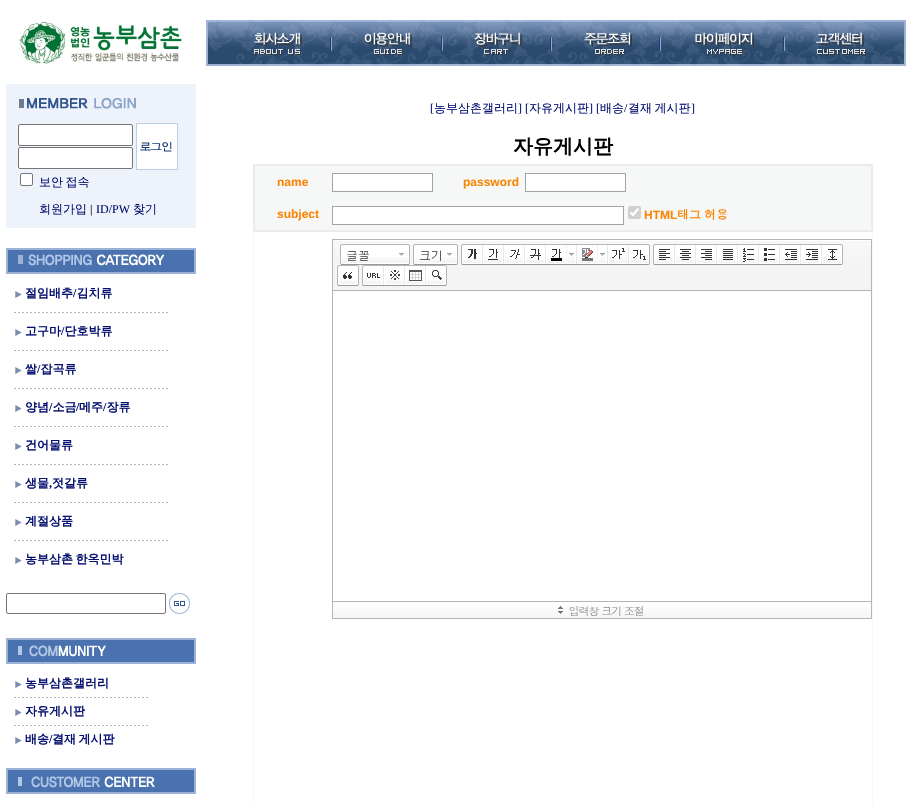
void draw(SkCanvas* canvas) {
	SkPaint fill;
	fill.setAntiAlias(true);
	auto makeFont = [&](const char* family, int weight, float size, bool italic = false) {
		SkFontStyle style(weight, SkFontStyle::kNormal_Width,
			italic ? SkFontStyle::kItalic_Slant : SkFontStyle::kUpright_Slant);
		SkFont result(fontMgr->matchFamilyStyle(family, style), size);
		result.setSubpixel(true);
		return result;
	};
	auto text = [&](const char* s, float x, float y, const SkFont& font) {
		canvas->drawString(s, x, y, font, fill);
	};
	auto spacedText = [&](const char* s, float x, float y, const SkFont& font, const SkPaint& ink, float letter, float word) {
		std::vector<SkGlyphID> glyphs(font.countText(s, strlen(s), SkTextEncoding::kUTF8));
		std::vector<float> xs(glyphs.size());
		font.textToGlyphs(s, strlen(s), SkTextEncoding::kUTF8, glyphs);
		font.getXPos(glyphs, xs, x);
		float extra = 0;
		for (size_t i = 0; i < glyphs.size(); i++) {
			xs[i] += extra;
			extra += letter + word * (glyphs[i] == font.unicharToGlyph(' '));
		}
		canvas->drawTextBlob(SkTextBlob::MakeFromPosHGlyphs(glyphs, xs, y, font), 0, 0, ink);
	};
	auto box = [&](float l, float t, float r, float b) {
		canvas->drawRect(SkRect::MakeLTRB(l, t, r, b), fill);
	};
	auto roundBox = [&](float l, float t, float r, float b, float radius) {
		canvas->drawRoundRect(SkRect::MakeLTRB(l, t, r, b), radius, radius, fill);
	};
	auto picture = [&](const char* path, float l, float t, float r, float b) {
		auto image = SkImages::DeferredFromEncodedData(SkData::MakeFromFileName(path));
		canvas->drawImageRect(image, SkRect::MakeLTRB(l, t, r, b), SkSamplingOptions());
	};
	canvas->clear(0xFFFFFFFF);
	picture("image0.png", 19, 21, 183, 64);
	picture("image1.png", 206, 20, 332, 66);
	picture("image2.png", 332, 20, 443, 66);
	picture("image3.png", 443, 20, 552, 66);
	picture("image4.png", 552, 20, 661, 66);
	picture("image5.png", 661, 20, 785, 66);
	picture("image6.png", 785, 20, 906, 66);
	fill.setColor(0xFFF6F8F7);
	box(253, 166, 873, 805);
	fill.setColor(0xFFEBEBEB);
	box(253, 164, 873, 166);
	box(253, 230, 873, 232);
	box(253, 197, 255, 232);
	box(253, 164, 255, 199);
	box(871, 197, 873, 232);
	box(871, 164, 873, 199);
	fill.setColor(0xFFFFFFFF);
	canvas->drawRect(SkRect::MakeLTRB(332.5f, 173.5f, 432.5f, 191.5f), fill);
	fill.setStyle(SkPaint::kStroke_Style);
	fill.setStrokeWidth(1);
	fill.setColor(0xFFA3A3A3);
	canvas->drawRect(SkRect::MakeLTRB(332.5f, 173.5f, 432.5f, 191.5f), fill);
	fill.setStyle(SkPaint::kFill_Style);
	fill.setColor(0xFFFFFFFF);
	canvas->drawRect(SkRect::MakeLTRB(525.5f, 173.5f, 625.5f, 191.5f), fill);
	fill.setStyle(SkPaint::kStroke_Style);
	fill.setColor(0xFFA3A3A3);
	canvas->drawRect(SkRect::MakeLTRB(525.5f, 173.5f, 625.5f, 191.5f), fill);
	fill.setStyle(SkPaint::kFill_Style);
	fill.setColor(0xFFFFFFFF);
	canvas->drawRect(SkRect::MakeLTRB(332.5f, 206.5f, 623.5f, 224.5f), fill);
	fill.setStyle(SkPaint::kStroke_Style);
	fill.setColor(0xFFA3A3A3);
	canvas->drawRect(SkRect::MakeLTRB(332.5f, 206.5f, 623.5f, 224.5f), fill);
	fill.setStyle(SkPaint::kFill_Style);
	fill.setColor(0xFFD0D1D0);
	roundBox(628, 206, 641, 219, 2);
	fill.setStyle(SkPaint::kStroke_Style);
	fill.setStrokeWidth(2.1f);
	fill.setColor(0xFFFFFFFF);
	canvas->drawPath(SkPathBuilder().moveTo(630.5f, 212.5f).lineTo(633, 215).lineTo(638.5f, 208.5f).detach(), fill);
	fill.setStyle(SkPaint::kFill_Style);
	box(254, 232, 872, 805);
	picture("image7.png", 332, 239, 872, 619);
	fill.setColor(0xFFEEF2FB);
	box(6, 84, 196, 228);
	picture("image8.png", 19, 98, 136, 109);
	fill.setColor(0xFFFFFFFF);
	canvas->drawRoundRect(SkRect::MakeLTRB(18.5f, 124.5f, 132.5f, 145.5f), 1.5f, 1.5f, fill);
	fill.setStyle(SkPaint::kStroke_Style);
	fill.setStrokeWidth(1);
	fill.setColor(0xFF767676);
	canvas->drawRoundRect(SkRect::MakeLTRB(18.5f, 124.5f, 132.5f, 145.5f), 1.5f, 1.5f, fill);
	picture("image9.png", 136, 123, 178, 170);
	fill.setStyle(SkPaint::kFill_Style);
	fill.setColor(0xFFFFFFFF);
	canvas->drawRoundRect(SkRect::MakeLTRB(18.5f, 147.5f, 132.5f, 168.5f), 1.5f, 1.5f, fill);
	fill.setStyle(SkPaint::kStroke_Style);
	fill.setColor(0xFF767676);
	canvas->drawRoundRect(SkRect::MakeLTRB(18.5f, 147.5f, 132.5f, 168.5f), 1.5f, 1.5f, fill);
	fill.setStyle(SkPaint::kFill_Style);
	fill.setColor(0xFFFFFFFF);
	canvas->drawRoundRect(SkRect::MakeLTRB(20.5f, 173.5f, 32.5f, 185.5f), 1.5f, 1.5f, fill);
	fill.setStyle(SkPaint::kStroke_Style);
	fill.setColor(0xFF767676);
	canvas->drawRoundRect(SkRect::MakeLTRB(20.5f, 173.5f, 32.5f, 185.5f), 1.5f, 1.5f, fill);
	picture("image10.png", 6, 248, 196, 274);
	picture("image11.png", 15, 291, 22, 298);
	picture("image12.png", 14, 312, 168, 313);
	picture("image11.png", 15, 329, 22, 336);
	picture("image12.png", 14, 350, 168, 351);
	picture("image11.png", 15, 367, 22, 374);
	picture("image12.png", 14, 388, 168, 389);
	picture("image11.png", 15, 405, 22, 412);
	picture("image12.png", 14, 426, 168, 427);
	picture("image11.png", 15, 443, 22, 450);
	picture("image12.png", 14, 464, 168, 465);
	picture("image11.png", 15, 481, 22, 488);
	picture("image12.png", 14, 502, 168, 503);
	picture("image11.png", 15, 519, 22, 526);
	picture("image12.png", 14, 540, 168, 541);
	picture("image11.png", 15, 557, 22, 564);
	canvas->drawRoundRect(SkRect::MakeLTRB(6.5f, 593.5f, 165.5f, 613.5f), 1.5f, 1.5f, fill);
	picture("image13.png", 169, 593, 190, 614);
	picture("image14.png", 6, 638, 196, 664);
	picture("image11.png", 15, 681, 22, 688);
	picture("image15.png", 14, 697, 148, 698);
	picture("image11.png", 15, 709, 22, 716);
	picture("image15.png", 14, 725, 148, 726);
	picture("image11.png", 15, 737, 22, 744);
	picture("image16.png", 6, 768, 196, 794);
	auto font1 = makeFont("Liberation Serif", 400, 12);
	fill.setStyle(SkPaint::kFill_Style);
	fill.setColor(0xFF040F6F);
	text("[", 430, 112, font1);
	auto font2 = makeFont("WenQuanYi Zen Hei", 500, 12);
	text("농부삼촌갤러리", 434, 112, font2);
	text("] [", 518, 112, font1);
	text("자유게시판", 529, 112, font2);
	text("] [", 589, 112, font1);
	text("배송", 600, 112, font2);
	text("/", 624, 112, font1);
	spacedText("결재 게시판", 628, 112, font2, fill, 0, -1);
	text("]", 691, 112, font1);
	auto font3 = makeFont("WenQuanYi Zen Hei", 700, 20);
	fill.setColor(0xFF000000);
	text("자유게시판", 513, 153, font3);
	auto font4 = makeFont("Liberation Sans", 700, 12);
	fill.setColor(0xFFFB8404);
	text("name", 277, 186, font4);
	text("password", 463, 186, font4);
	text("subject", 277, 218, font4);
	text("HTML", 644, 219, font4);
	auto font5 = makeFont("Dotum", 700, 12);
	spacedText("태그 허용", 677, 219, font5, fill, 0, -1);
	fill.setColor(0xFF040F6F);
	spacedText("보안 접속", 39, 186, font2, fill, 0, -1);
	text("회원가입", 39, 213, font2);
	fill.setColor(0xFF000000);
	text("|", 90, 213, font1);
	fill.setColor(0xFF040F6F);
	text("ID/PW", 96, 213, font1);
	text("찾기", 133, 213, font2);
	auto font6 = makeFont("WenQuanYi Zen Hei", 700, 12);
	text("절임배추 김치류", 25, 297, font6);
	auto font7 = makeFont("Liberation Serif", 700, 12);
	text("/", 73, 297, font7);
	text("고구마 단호박류", 25, 335, font6);
	text("/", 61, 335, font7);
	text("쌀 잡곡류", 25, 373, font6);
	text("/", 37, 373, font7);
	text("양념 소금", 25, 411, font6);
	text("/", 49, 411, font7);
	text("/", 76, 411, font7);
	text("메주 장류", 79, 411, font6);
	text("/", 103, 411, font7);
	text("건어물류", 25, 449, font6);
	text("생물", 25, 487, font6);
	text(",", 49, 487, font7);
	text("젓갈류", 52, 487, font6);
	text("계절상품", 25, 525, font6);
	spacedText("농부삼촌 한옥민박", 25, 563, font6, fill, 0, -1);
	text("농부삼촌갤러리", 25, 687, font6);
	text("자유게시판", 25, 715, font6);
	text("배송", 25, 743, font6);
	text("/", 49, 743, font7);
	spacedText("결재 게시판", 52, 743, font6, fill, 0, -1);
}
